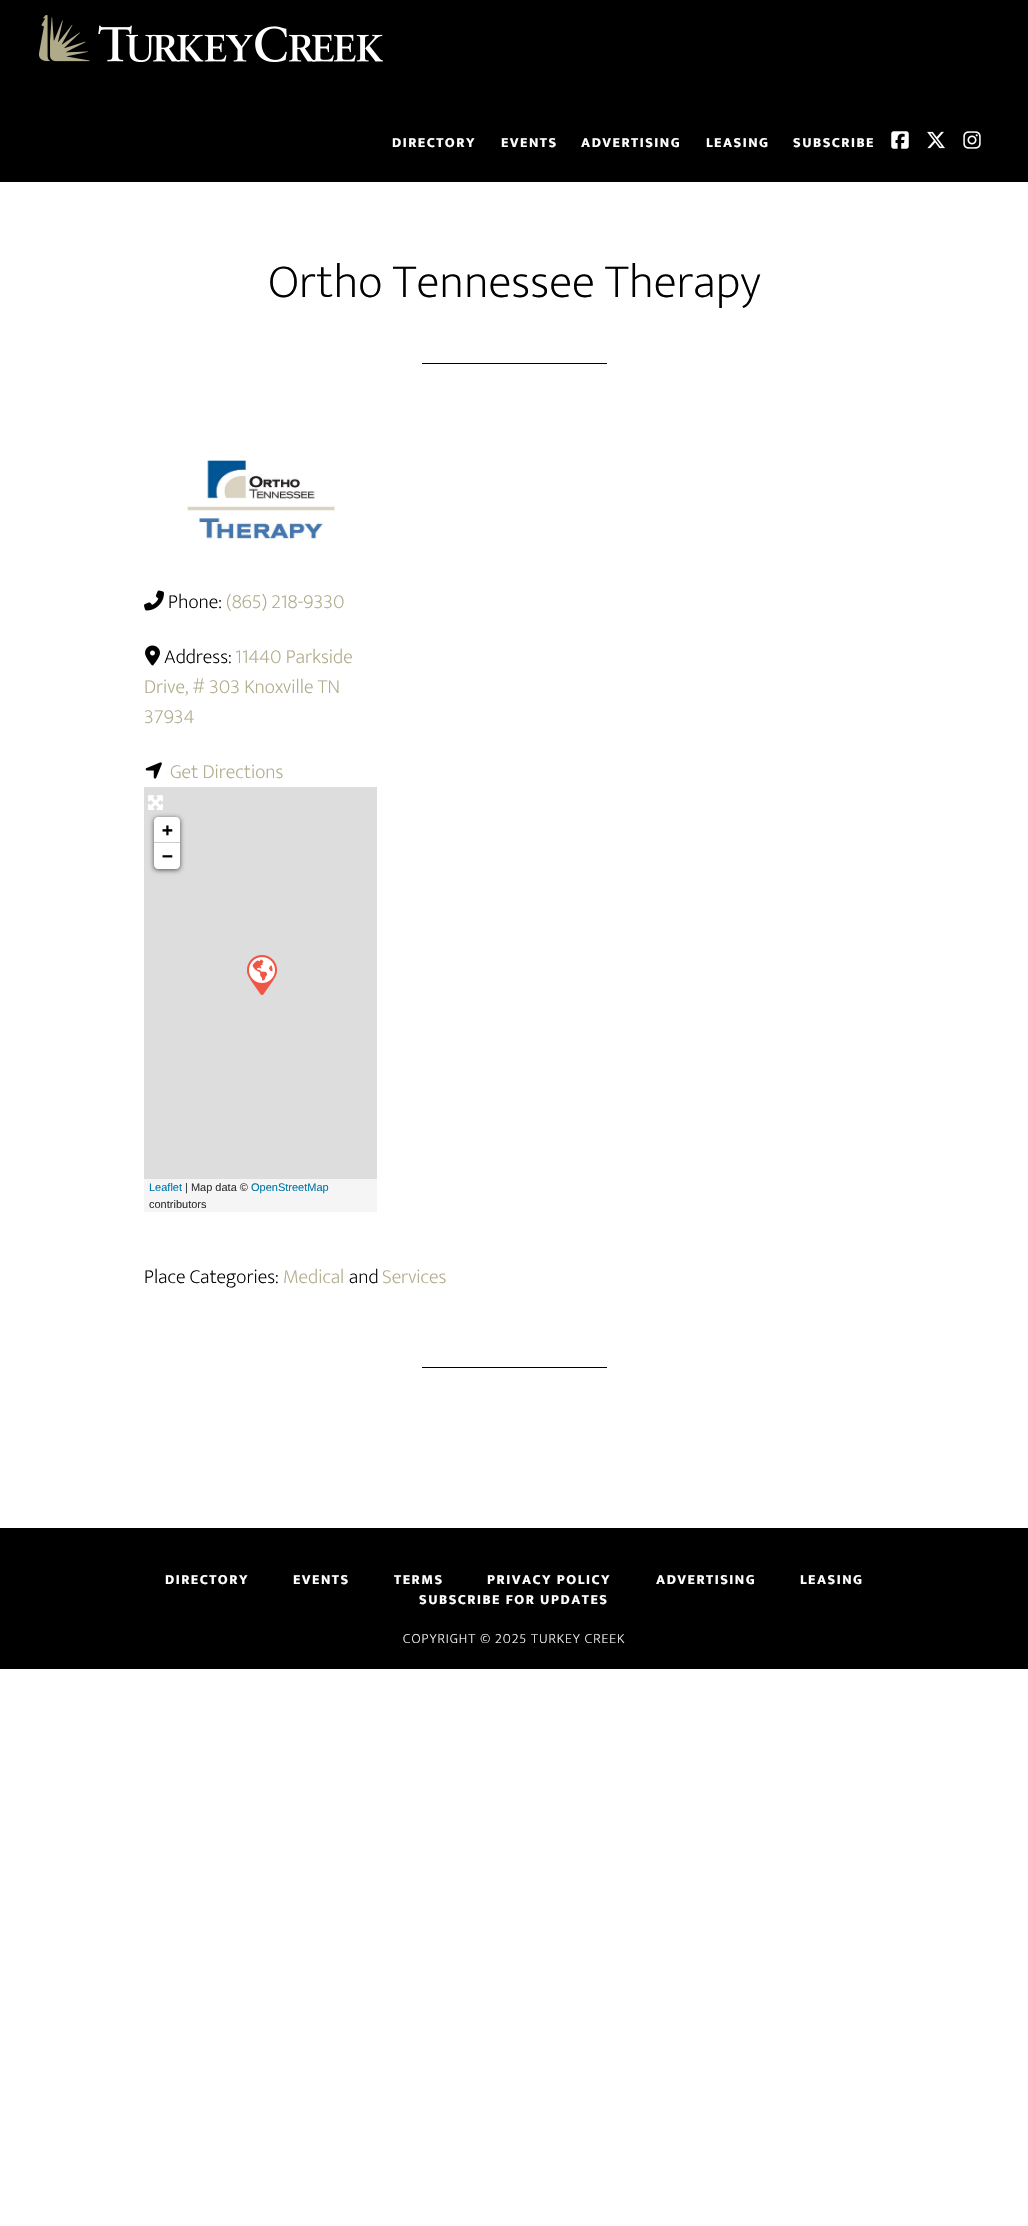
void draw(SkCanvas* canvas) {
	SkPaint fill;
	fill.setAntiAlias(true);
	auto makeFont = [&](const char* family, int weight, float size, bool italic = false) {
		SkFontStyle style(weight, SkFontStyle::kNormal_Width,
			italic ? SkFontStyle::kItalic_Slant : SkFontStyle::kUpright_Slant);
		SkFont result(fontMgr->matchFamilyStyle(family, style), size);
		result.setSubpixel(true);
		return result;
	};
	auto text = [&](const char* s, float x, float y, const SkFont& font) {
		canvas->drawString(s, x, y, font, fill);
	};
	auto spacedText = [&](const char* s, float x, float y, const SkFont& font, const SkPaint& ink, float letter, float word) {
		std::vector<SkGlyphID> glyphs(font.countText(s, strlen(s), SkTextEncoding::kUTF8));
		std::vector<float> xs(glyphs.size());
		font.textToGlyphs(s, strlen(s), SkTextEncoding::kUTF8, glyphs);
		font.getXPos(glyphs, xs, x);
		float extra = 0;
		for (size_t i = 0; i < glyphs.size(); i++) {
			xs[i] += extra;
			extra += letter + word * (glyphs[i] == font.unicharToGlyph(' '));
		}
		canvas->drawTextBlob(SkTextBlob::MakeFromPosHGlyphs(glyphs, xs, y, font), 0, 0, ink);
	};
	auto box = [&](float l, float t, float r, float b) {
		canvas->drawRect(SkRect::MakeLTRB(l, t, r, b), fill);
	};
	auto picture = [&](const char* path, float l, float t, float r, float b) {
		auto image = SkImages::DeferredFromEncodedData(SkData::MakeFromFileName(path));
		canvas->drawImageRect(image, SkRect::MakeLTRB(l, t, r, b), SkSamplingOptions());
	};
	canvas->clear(0xFFFFFFFF);
	fill.setColor(0xFF000000);
	box(0, 0, 1028, 182);
	picture("image0.png", 39, 15, 383, 62);
	picture("image1.png", 891, 131, 909, 149);
	picture("image2.png", 927, 131, 945, 149);
	picture("image3.png", 963, 131, 981, 149);
	box(422, 363, 607, 364);
	picture("image4.png", 187, 460, 336, 539);
	picture("image5.png", 144, 590, 164, 611);
	picture("image6.png", 145, 645, 160, 666);
	picture("image7.png", 145, 762, 162, 779);
	fill.setColor(0xFFDDDDDD);
	box(144, 787, 377, 1179);
	fill.setColor(0xA6000000);
	fill.setMaskFilter(SkMaskFilter::MakeBlur(kNormal_SkBlurStyle, 2.5f));
	canvas->drawRoundRect(SkRect::MakeLTRB(154, 818, 180, 870), 4, 4, fill);
	fill.setMaskFilter(nullptr);
	picture("image8.png", 148, 795, 163, 810);
	fill.setColor(0xFFFFFFFF);
	canvas->drawPath(SkPathBuilder().moveTo(158, 817).lineTo(176, 817).cubicTo(178, 817, 180, 819, 180, 821).lineTo(180, 843).lineTo(154, 843).lineTo(154, 821).cubicTo(154, 819, 156, 817, 158, 817).close().detach(), fill);
	fill.setColor(0xFFCCCCCC);
	box(154, 842, 180, 843);
	fill.setColor(0xFFFFFFFF);
	canvas->drawPath(SkPathBuilder().moveTo(154, 843).lineTo(180, 843).lineTo(180, 865).cubicTo(180, 867, 178, 869, 176, 869).lineTo(158, 869).cubicTo(156, 869, 154, 867, 154, 865).close().detach(), fill);
	fill.setColor(0xFFF5F5F5);
	box(144, 1179, 377, 1212);
	picture("image9.png", 247, 955, 277, 995);
	fill.setColor(0xFF000000);
	box(422, 1367, 607, 1368);
	box(0, 1528, 1028, 1669);
	auto font1 = makeFont("Ek Mukta", 800, 14);
	fill.setColor(0xFFFFFFFF);
	spacedText("DIRECTORY", 392, 147, font1, fill, 1.5f, 0);
	spacedText("EVENTS", 501, 147, font1, fill, 1.5f, 0);
	spacedText("ADVERTISING", 581, 147, font1, fill, 1.5f, 0);
	spacedText("LEASING", 706, 147, font1, fill, 1.5f, 0);
	spacedText("SUBSCRIBE", 793, 147, font1, fill, 1.5f, 0);
	auto font2 = makeFont("Ek Mukta", 200, 48);
	fill.setColor(0xFF000000);
	text("Ortho Tennessee Therapy", 268, 297, font2);
	auto font3 = makeFont("Ek Mukta", 200, 20);
	text("Phone:", 168, 608, font3);
	fill.setColor(0xFFAEAA88);
	text("(865) 218-9330", 226, 608, font3);
	fill.setColor(0xFF000000);
	text("Address:", 164, 663, font3);
	fill.setColor(0xFFAEAA88);
	text("11440 Parkside", 235, 663, font3);
	text("Drive, # 303 Knoxville TN", 144, 693, font3);
	text("37934", 144, 723, font3);
	text("Get Directions", 170, 778, font3);
	auto font4 = makeFont("DejaVu Sans Mono", 700, 18);
	fill.setColor(0xFF000000);
	text("+", 162, 836, font4);
	text("−", 162, 862, font4);
	auto font5 = makeFont("Liberation Sans", 400, 11);
	fill.setColor(0xFF0078A8);
	text("Leaflet", 149, 1191, font5);
	fill.setColor(0xFF333333);
	text("| Map data ©", 185, 1191, font5);
	fill.setColor(0xFF0078A8);
	text("OpenStreetMap", 251, 1191, font5);
	fill.setColor(0xFF333333);
	text("contributors", 149, 1208, font5);
	fill.setColor(0xFF000000);
	text("Place Categories:", 144, 1283, font3);
	fill.setColor(0xFFAEAA88);
	text("Medical", 283, 1283, font3);
	fill.setColor(0xFF000000);
	text("and", 349, 1283, font3);
	fill.setColor(0xFFAEAA88);
	text("Services", 382, 1283, font3);
	fill.setColor(0xFFFFFFFF);
	spacedText("DIRECTORY", 165, 1584, font1, fill, 1.5f, 0);
	spacedText("EVENTS", 293, 1584, font1, fill, 1.5f, 0);
	spacedText("TERMS", 394, 1584, font1, fill, 1.5f, 0);
	spacedText("PRIVACY POLICY", 487, 1584, font1, fill, 1.5f, 0);
	spacedText("ADVERTISING", 656, 1584, font1, fill, 1.5f, 0);
	spacedText("LEASING", 800, 1584, font1, fill, 1.5f, 0);
	spacedText("SUBSCRIBE FOR UPDATES", 419, 1604, font1, fill, 1.5f, 0);
	auto font6 = makeFont("Ek Mukta", 200, 14);
	spacedText("COPYRIGHT © 2025 TURKEY CREEK", 403, 1643, font6, fill, 1, 0);
}
